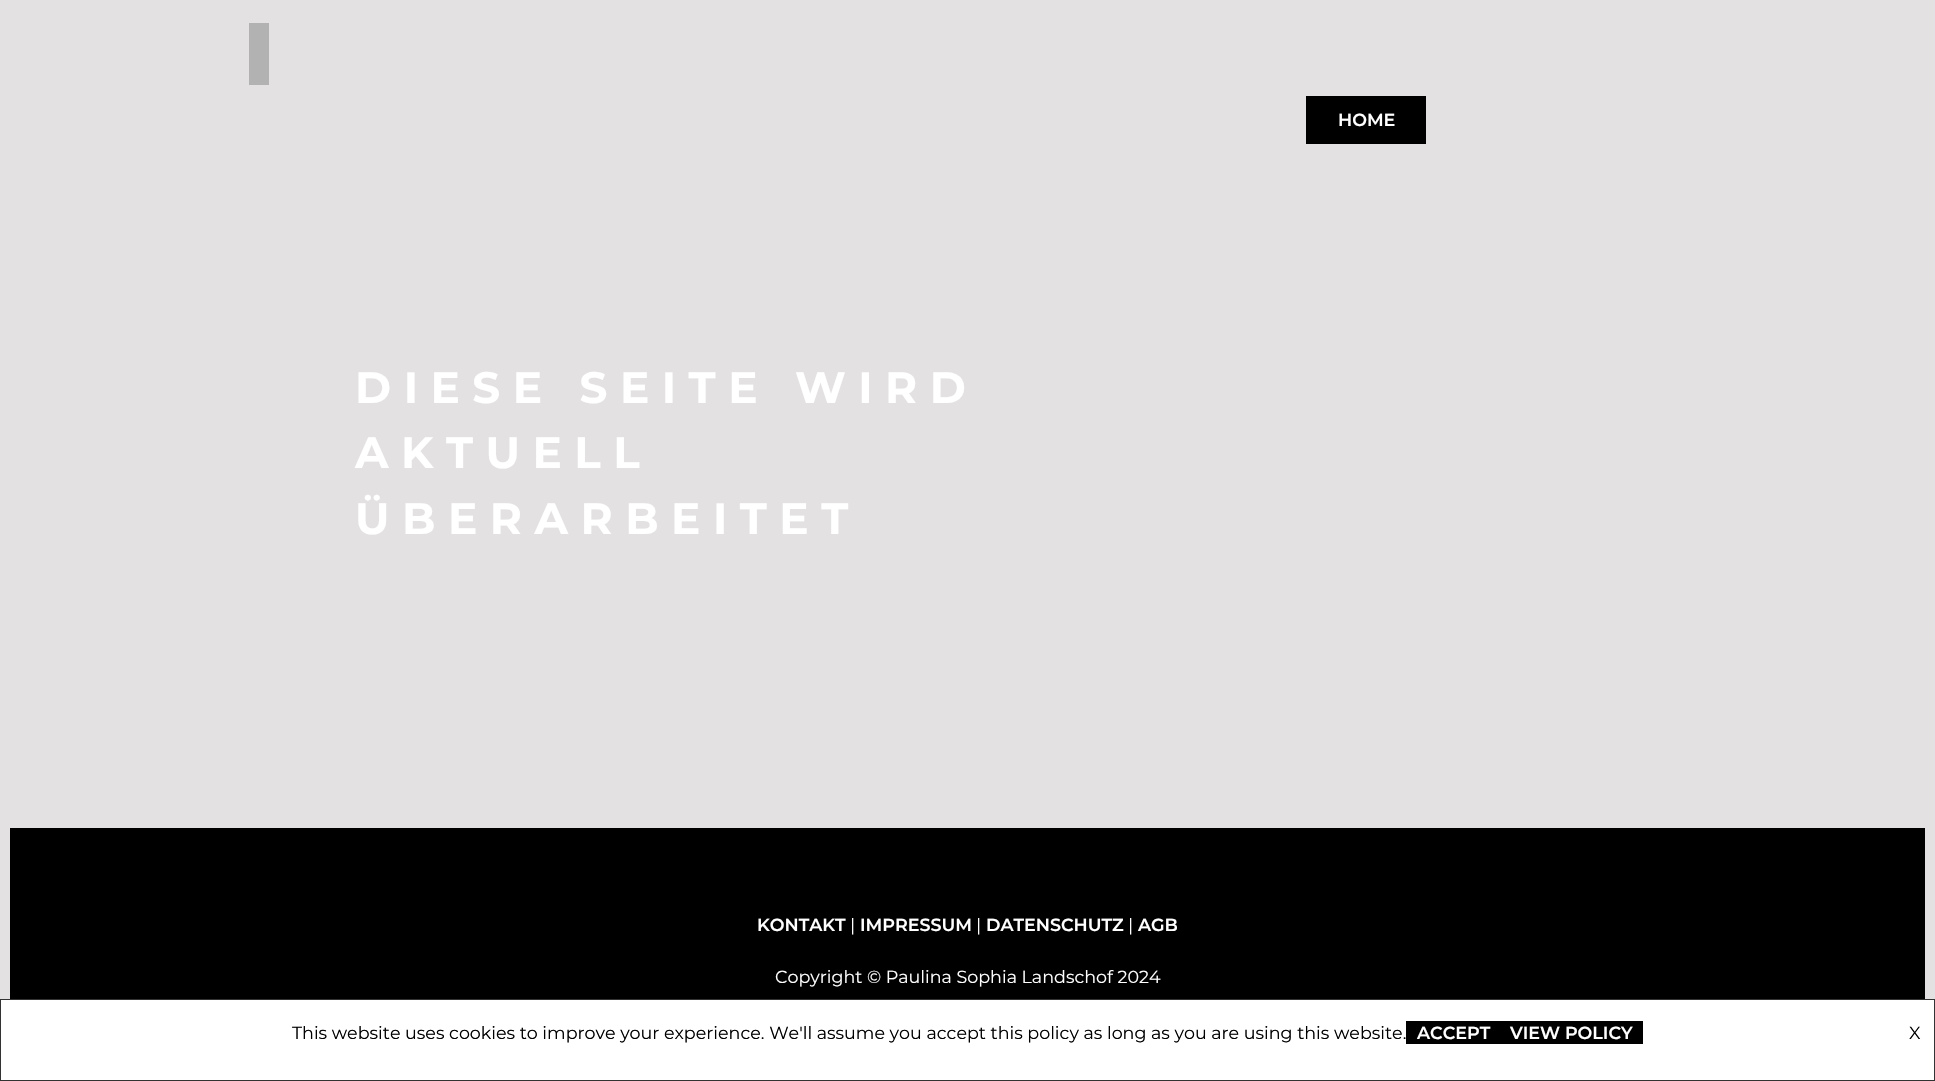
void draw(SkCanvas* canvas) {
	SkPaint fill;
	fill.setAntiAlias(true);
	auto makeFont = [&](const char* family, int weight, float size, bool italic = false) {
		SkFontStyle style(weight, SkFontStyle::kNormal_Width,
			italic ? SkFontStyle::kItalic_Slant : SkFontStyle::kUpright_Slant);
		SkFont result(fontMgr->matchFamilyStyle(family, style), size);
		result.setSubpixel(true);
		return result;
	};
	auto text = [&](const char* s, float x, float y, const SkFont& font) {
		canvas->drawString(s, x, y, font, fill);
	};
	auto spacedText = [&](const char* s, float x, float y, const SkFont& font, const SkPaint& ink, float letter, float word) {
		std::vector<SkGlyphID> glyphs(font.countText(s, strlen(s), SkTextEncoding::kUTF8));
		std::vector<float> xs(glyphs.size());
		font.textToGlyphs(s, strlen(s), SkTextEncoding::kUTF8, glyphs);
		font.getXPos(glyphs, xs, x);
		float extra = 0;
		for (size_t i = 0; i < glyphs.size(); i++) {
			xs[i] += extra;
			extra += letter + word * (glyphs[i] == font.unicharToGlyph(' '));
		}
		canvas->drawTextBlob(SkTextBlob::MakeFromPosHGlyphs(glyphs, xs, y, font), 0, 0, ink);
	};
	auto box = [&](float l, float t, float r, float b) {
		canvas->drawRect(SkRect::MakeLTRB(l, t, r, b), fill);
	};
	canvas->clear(0xFFE3E1E1);
	fill.setColor(0xFFB3B2B2);
	box(249, 23, 269, 85);
	fill.setColor(0xFF000000);
	box(1306, 96, 1426, 144);
	box(10, 828, 1925, 999);
	fill.setColor(0xFFFFFFFF);
	canvas->drawRect(SkRect::MakeLTRB(0.5f, 999.5f, 1934.5f, 1080.5f), fill);
	fill.setStyle(SkPaint::kStroke_Style);
	fill.setStrokeWidth(1);
	fill.setColor(0xFF333333);
	canvas->drawRect(SkRect::MakeLTRB(0.5f, 999.5f, 1934.5f, 1080.5f), fill);
	fill.setStyle(SkPaint::kFill_Style);
	fill.setColor(0xFF000000);
	box(1406, 1021, 1643, 1044);
	auto font1 = makeFont("Montserrat", 600, 17.5f);
	fill.setColor(0xFFFFFFFF);
	text("HOME", 1338, 126, font1);
	auto font2 = makeFont("Montserrat", 700, 43.75f);
	spacedText("DIESE SEITE WIRD", 355, 403, font2, fill, 12.5f, 0);
	spacedText("AKTUELL", 355, 468, font2, fill, 12.5f, 0);
	spacedText("ÜBERARBEITET", 355, 534, font2, fill, 12.5f, 0);
	text("KONTAKT", 757, 931, font1);
	auto font3 = makeFont("Montserrat", 400, 17.5f);
	text("|", 850, 931, font3);
	text("IMPRESSUM", 860, 931, font1);
	text("|", 976, 931, font3);
	text("DATENSCHUTZ", 986, 931, font1);
	text("|", 1128, 931, font3);
	text("AGB", 1138, 931, font1);
	text("Copyright © Paulina Sophia Landschof 2024", 775, 983, font3);
	fill.setColor(0xFF000000);
	text("This website uses cookies to improve your experience. We'll assume you accept this policy as long as you are using this website.", 292, 1039, font3);
	fill.setColor(0xFFFFFFFF);
	text("ACCEPT", 1417, 1039, font1);
	text("VIEW POLICY", 1510, 1039, font1);
	fill.setColor(0xFF000000);
	text("X", 1909, 1039, font3);
}
